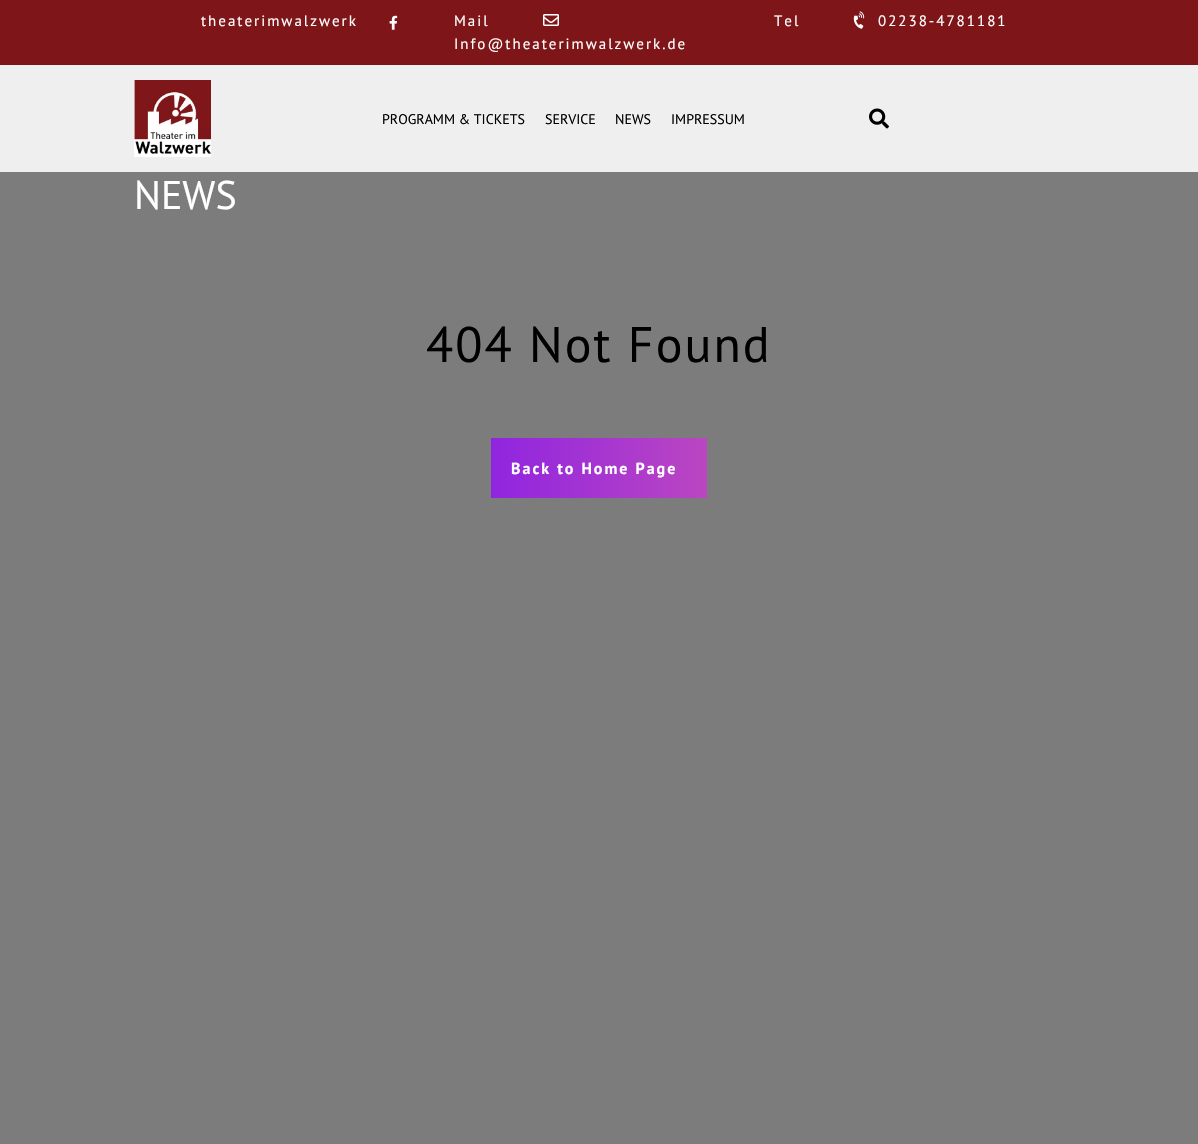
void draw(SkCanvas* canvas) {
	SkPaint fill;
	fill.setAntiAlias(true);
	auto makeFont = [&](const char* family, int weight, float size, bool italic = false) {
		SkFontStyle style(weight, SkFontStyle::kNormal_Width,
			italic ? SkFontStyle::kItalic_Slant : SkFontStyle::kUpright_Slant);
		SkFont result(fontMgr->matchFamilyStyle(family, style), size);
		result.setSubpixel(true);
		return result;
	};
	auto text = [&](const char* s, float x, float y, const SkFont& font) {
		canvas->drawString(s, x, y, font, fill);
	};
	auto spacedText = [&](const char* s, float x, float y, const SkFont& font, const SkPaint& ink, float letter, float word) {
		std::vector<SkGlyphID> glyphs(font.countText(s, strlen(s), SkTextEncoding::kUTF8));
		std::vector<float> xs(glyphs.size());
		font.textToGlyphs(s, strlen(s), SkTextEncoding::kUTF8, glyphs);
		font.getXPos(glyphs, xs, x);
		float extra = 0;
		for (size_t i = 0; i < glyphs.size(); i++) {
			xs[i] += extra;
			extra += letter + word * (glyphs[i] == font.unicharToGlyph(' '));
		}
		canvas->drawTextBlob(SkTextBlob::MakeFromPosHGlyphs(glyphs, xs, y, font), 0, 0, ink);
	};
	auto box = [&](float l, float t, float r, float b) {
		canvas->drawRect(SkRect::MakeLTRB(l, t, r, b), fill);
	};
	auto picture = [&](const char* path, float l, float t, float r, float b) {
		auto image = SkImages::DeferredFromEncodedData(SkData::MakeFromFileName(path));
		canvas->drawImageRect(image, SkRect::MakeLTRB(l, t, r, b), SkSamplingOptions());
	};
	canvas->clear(0xFF7C7C7C);
	fill.setColor(0xFF7E1518);
	box(0, 0, 1198, 65);
	picture("image0.png", 389, 15, 398, 30);
	picture("image1.png", 543, 14, 559, 26);
	picture("image2.png", 853, 11, 865, 29);
	fill.setColor(0xFFEFEFEF);
	box(0, 65, 1198, 172);
	picture("image3.png", 134, 80, 211, 157);
	picture("image4.png", 869, 108, 889, 129);
	{
		const SkColor colors[] = {0xFF9025E0, 0xFFBB46C1};
		const float stops[] = {0, 1};
		const SkPoint ends[] = {{491, 468}, {707, 468}};
		fill.setShader(SkGradientShader::MakeLinear(ends, colors, stops, 2, SkTileMode::kClamp));
		fill.setAlpha(255);
	}
	box(491, 438, 707, 498);
	auto font1 = makeFont("PT Sans", 400, 15);
	fill.setShader(nullptr);
	fill.setColor(0xFFFFFFFF);
	spacedText("theaterimwalzwerk", 201, 26, font1, fill, 2, 0);
	spacedText("Mail", 454, 26, font1, fill, 2, 0);
	spacedText("Info@theaterimwalzwerk.de", 454, 49, font1, fill, 2, 0);
	spacedText("Tel", 774, 26, font1, fill, 2, 0);
	spacedText("02238-4781181", 878, 26, font1, fill, 2, 0);
	auto font2 = makeFont("PT Sans", 400, 14);
	fill.setColor(0xFF000000);
	text("PROGRAMM & TICKETS", 382, 124, font2);
	text("SERVICE", 545, 124, font2);
	text("NEWS", 615, 124, font2);
	text("IMPRESSUM", 671, 124, font2);
	auto font3 = makeFont("PT Sans", 400, 40);
	fill.setColor(0xFFFFFFFF);
	text("NEWS", 134, 209, font3);
	auto font4 = makeFont("PT Sans", 400, 50);
	fill.setColor(0xFF000000);
	spacedText("404 Not Found", 426, 362, font4, fill, 2, 0);
	auto font5 = makeFont("PT Sans", 700, 16);
	fill.setColor(0xFFFFFFFF);
	spacedText("Back to Home Page", 511, 474, font5, fill, 2, 0);
}
